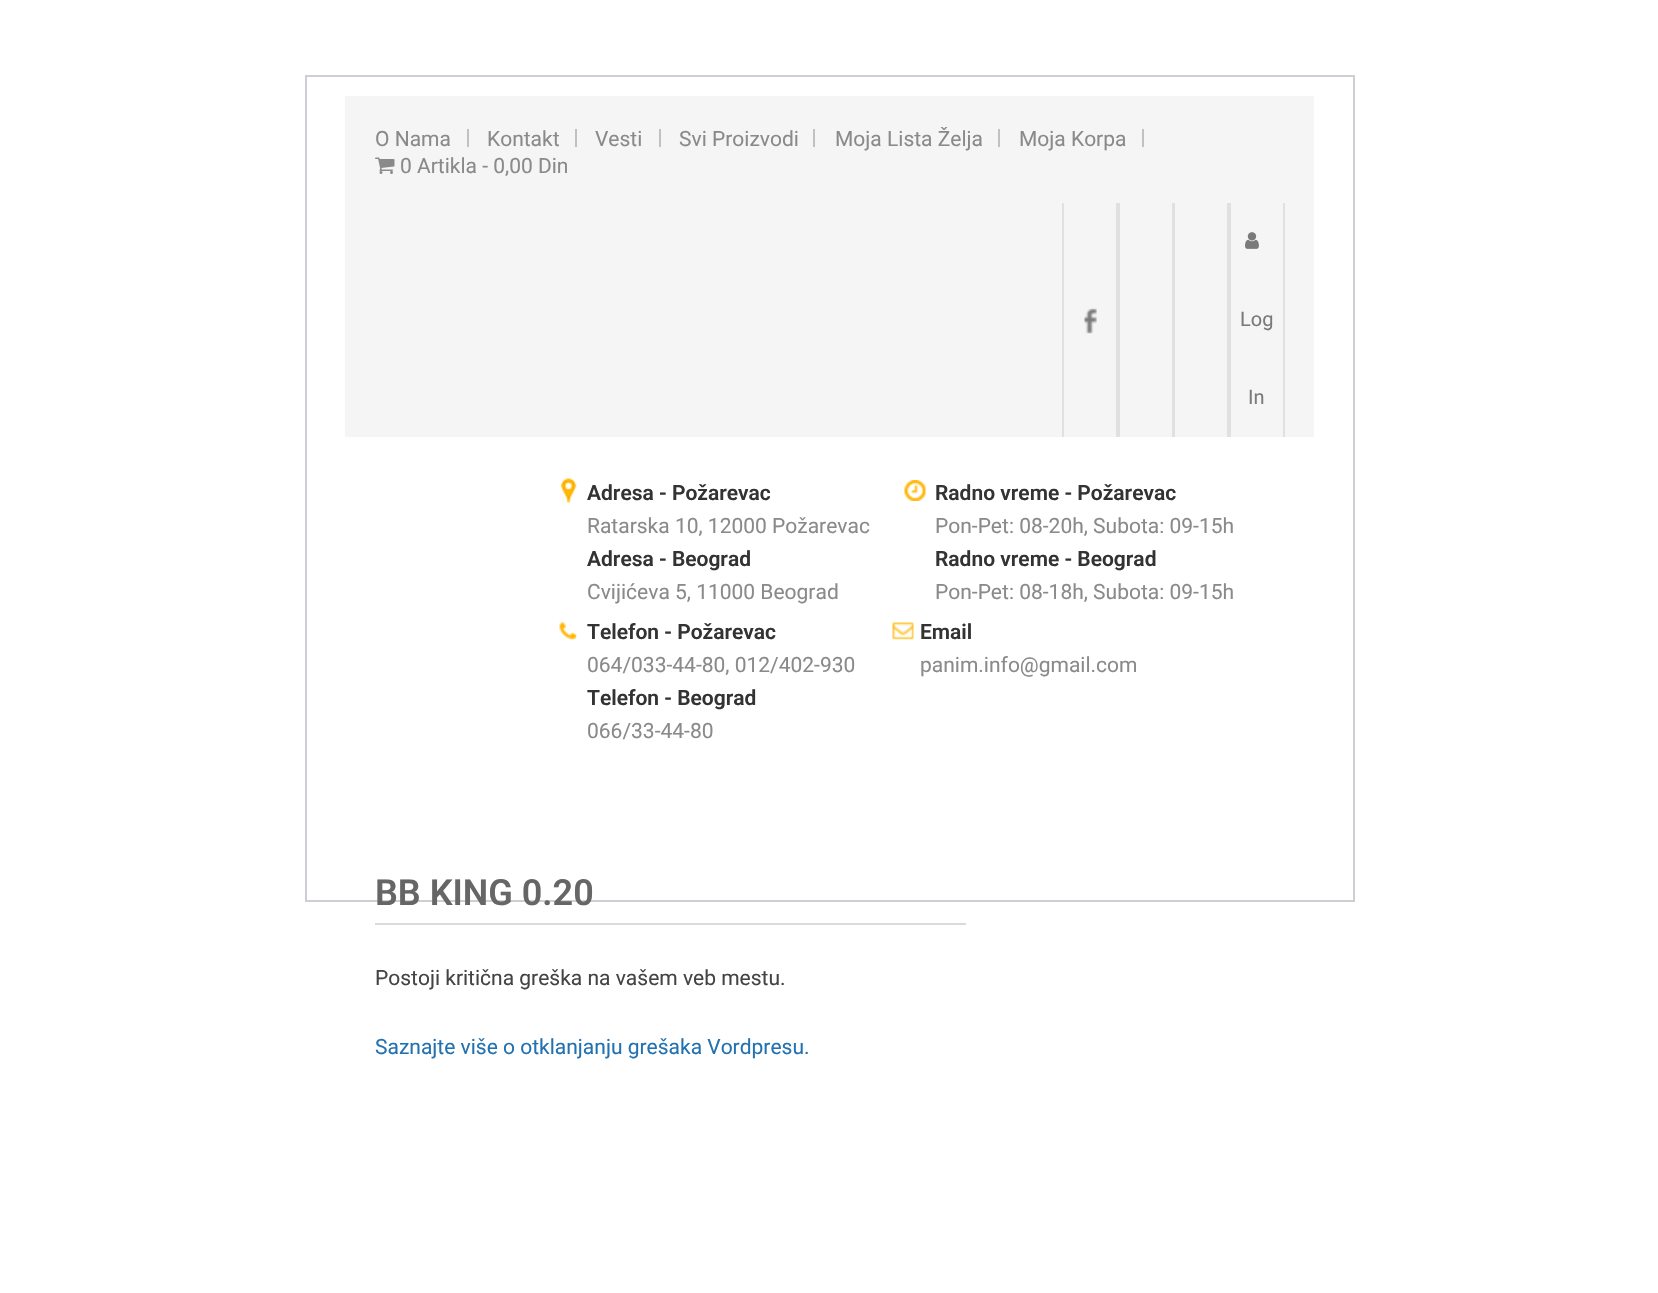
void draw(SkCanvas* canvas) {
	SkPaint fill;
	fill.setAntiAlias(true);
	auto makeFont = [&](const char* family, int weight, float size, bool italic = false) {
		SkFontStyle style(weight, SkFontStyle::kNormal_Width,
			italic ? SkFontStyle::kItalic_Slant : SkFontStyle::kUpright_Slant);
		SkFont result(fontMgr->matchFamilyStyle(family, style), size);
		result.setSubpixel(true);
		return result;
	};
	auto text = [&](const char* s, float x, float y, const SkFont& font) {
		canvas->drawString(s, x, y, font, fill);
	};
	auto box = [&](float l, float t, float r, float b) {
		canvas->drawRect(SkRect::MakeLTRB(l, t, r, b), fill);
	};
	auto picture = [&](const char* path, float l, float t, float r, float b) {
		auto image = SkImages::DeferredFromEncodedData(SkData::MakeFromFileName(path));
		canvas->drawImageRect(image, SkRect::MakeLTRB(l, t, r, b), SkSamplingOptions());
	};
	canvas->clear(0xFFFFFFFF);
	fill.setStyle(SkPaint::kStroke_Style);
	fill.setStrokeWidth(2);
	fill.setColor(0xFFCCD0D4);
	canvas->drawRect(SkRect::MakeLTRB(306, 76, 1354, 901), fill);
	fill.setStyle(SkPaint::kFill_Style);
	fill.setColor(0xFFF5F5F5);
	box(345, 96, 1314, 437);
	fill.setColor(0xFFC1C1C1);
	box(467, 129, 469, 147);
	box(575, 129, 577, 147);
	box(659, 129, 661, 147);
	box(813, 129, 815, 147);
	box(998, 129, 1000, 147);
	box(1142, 129, 1144, 147);
	picture("image0.png", 375, 157, 395, 174);
	picture("image1.png", 1084, 308, 1097, 334);
	fill.setColor(0xFFE0E0E0);
	box(1116, 203, 1120, 437);
	box(1062, 203, 1064, 437);
	box(1172, 203, 1175, 437);
	box(1227, 203, 1231, 437);
	box(1283, 203, 1285, 437);
	picture("image2.png", 1245, 232, 1259, 249);
	picture("image3.png", 560, 478, 577, 503);
	picture("image4.png", 904, 480, 926, 501);
	picture("image5.png", 559, 622, 577, 640);
	picture("image6.png", 892, 622, 914, 640);
	fill.setColor(0xFFDADADA);
	box(375, 923, 966, 925);
	auto font1 = makeFont("Roboto", 400, 21);
	fill.setColor(0xFF8A8A8A);
	text("O Nama", 375, 146, font1);
	text("Kontakt", 487, 146, font1);
	text("Vesti", 595, 146, font1);
	text("Svi Proizvodi", 679, 146, font1);
	text("Moja Lista Želja", 835, 146, font1);
	text("Moja Korpa", 1019, 146, font1);
	text("0 Artikla - 0,00 Din", 400, 173, font1);
	auto font2 = makeFont("Roboto", 400, 20);
	fill.setColor(0xFF7A7A7A);
	text("Log", 1240, 326, font2);
	text("In", 1248, 404, font2);
	auto font3 = makeFont("Roboto", 600, 21);
	fill.setColor(0xFF333333);
	text("Adresa - Požarevac", 587, 500, font3);
	fill.setColor(0xFF8A8A8A);
	text("Ratarska 10, 12000 Požarevac", 587, 533, font1);
	fill.setColor(0xFF333333);
	text("Adresa - Beograd", 587, 566, font3);
	fill.setColor(0xFF8A8A8A);
	text("Cvijićeva 5, 11000 Beograd", 587, 599, font1);
	fill.setColor(0xFF333333);
	text("Radno vreme - Požarevac", 935, 500, font3);
	fill.setColor(0xFF8A8A8A);
	text("Pon-Pet: 08-20h, Subota: 09-15h", 935, 533, font1);
	fill.setColor(0xFF333333);
	text("Radno vreme - Beograd", 935, 566, font3);
	fill.setColor(0xFF8A8A8A);
	text("Pon-Pet: 08-18h, Subota: 09-15h", 935, 599, font1);
	fill.setColor(0xFF333333);
	text("Telefon - Požarevac", 587, 639, font3);
	fill.setColor(0xFF8A8A8A);
	text("064/033-44-80, 012/402-930", 587, 672, font1);
	fill.setColor(0xFF333333);
	text("Telefon - Beograd", 587, 705, font3);
	fill.setColor(0xFF8A8A8A);
	text("066/33-44-80", 587, 738, font1);
	fill.setColor(0xFF333333);
	text("Email", 920, 639, font3);
	fill.setColor(0xFF8A8A8A);
	text("panim.info@gmail.com", 920, 672, font1);
	auto font4 = makeFont("Roboto", 600, 36);
	fill.setColor(0xFF666666);
	text("BB KING 0.20", 375, 905, font4);
	fill.setColor(0xFF444444);
	text("Postoji kritična greška na vašem veb mestu.", 375, 985, font1);
	fill.setColor(0xFF2271B1);
	text("Saznajte više o otklanjanju grešaka Vordpresu.", 375, 1054, font1);
}
